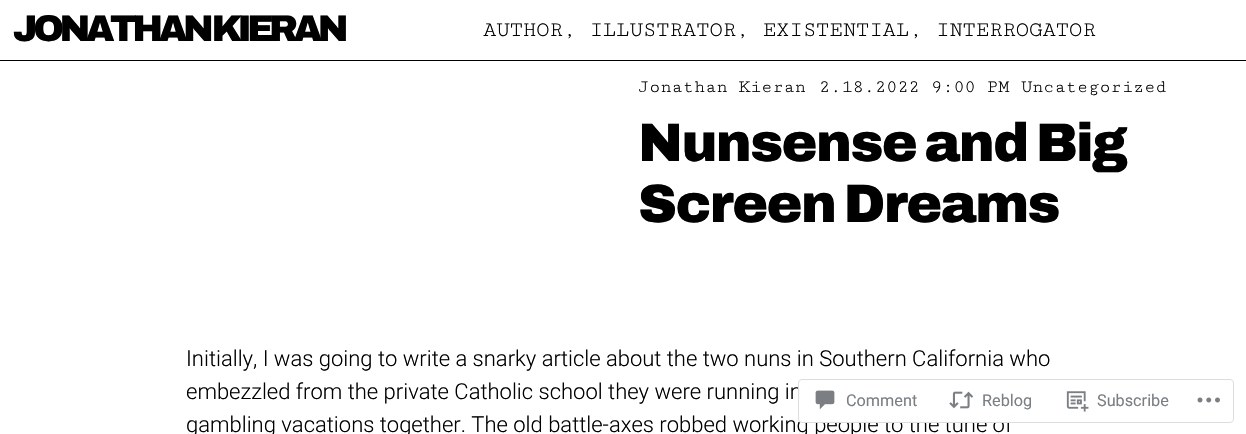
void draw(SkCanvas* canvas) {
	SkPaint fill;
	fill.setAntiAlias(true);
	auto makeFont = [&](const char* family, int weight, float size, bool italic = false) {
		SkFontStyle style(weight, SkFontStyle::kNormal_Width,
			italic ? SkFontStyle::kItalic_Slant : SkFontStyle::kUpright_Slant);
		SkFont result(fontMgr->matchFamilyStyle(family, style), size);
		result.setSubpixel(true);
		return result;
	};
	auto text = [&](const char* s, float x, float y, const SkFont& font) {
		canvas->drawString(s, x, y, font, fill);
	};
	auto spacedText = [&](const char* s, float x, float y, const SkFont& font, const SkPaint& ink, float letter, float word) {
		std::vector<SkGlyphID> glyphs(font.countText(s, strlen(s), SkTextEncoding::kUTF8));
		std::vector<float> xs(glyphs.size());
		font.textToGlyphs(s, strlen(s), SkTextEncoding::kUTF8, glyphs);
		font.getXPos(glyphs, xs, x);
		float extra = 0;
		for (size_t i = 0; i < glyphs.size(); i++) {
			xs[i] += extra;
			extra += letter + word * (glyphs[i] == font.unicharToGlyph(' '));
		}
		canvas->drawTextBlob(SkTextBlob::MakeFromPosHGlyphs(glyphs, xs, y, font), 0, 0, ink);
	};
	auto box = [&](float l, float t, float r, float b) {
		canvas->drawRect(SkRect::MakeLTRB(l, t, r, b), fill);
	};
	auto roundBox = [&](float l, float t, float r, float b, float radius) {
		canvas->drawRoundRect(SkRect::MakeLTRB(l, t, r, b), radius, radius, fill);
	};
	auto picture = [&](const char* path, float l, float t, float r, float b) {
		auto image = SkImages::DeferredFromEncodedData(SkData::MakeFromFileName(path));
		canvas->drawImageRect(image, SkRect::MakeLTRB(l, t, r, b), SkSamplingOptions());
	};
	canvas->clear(0xFFFFFFFF);
	fill.setColor(0xFF000000);
	box(0, 60, 1246, 61);
	auto font1 = makeFont("Archivo", 900, 37);
	spacedText("JONATHAN KIERAN", 13, 41, font1, fill, -4.5f, 0);
	auto font2 = makeFont("Cutive Mono", 400, 22);
	text("AUTHOR, ILLUSTRATOR, EXISTENTIAL, INTERROGATOR", 483, 36, font2);
	auto font3 = makeFont("Cutive Mono", 400, 18.5f);
	text("Jonathan Kieran", 638, 92, font3);
	text("2.18.2022 9:00 PM", 819, 92, font3);
	text("Uncategorized", 1021, 92, font3);
	auto font4 = makeFont("Archivo", 900, 54);
	spacedText("Nunsense and Big", 638, 161, font4, fill, -1.6f, 0);
	spacedText("Screen Dreams", 638, 222, font4, fill, -1.6f, 0);
	auto font5 = makeFont("Roboto", 300, 22);
	text("Initially, I was going to write a snarky article about the two nuns in Southern California who", 186, 366, font5);
	text("embezzled from the private Catholic school they were running in", 186, 399, font5);
	text("gambling vacations together. The old battle-axes robbed working people to the tune of", 186, 432, font5);
	fill.setColor(0xFAFFFFFF);
	roundBox(798, 379, 1234, 423, 4);
	fill.setStyle(SkPaint::kStroke_Style);
	fill.setStrokeWidth(1);
	fill.setColor(0xFADCDCDE);
	canvas->drawRoundRect(SkRect::MakeLTRB(798.5f, 379.5f, 1233.5f, 422.5f), 3.5f, 3.5f, fill);
	picture("image0.png", 815, 390, 835, 410);
	auto font6 = makeFont("Roboto", 400, 16.25f);
	fill.setStyle(SkPaint::kFill_Style);
	fill.setColor(0xFF7B7F84);
	text("Comment", 846, 406, font6);
	picture("image1.png", 949, 391, 974, 409);
	text("Reblog", 982, 406, font6);
	picture("image2.png", 1066, 391, 1089, 412);
	text("Subscribe", 1097, 406, font6);
	picture("image3.png", 1197, 397, 1220, 403);
}
